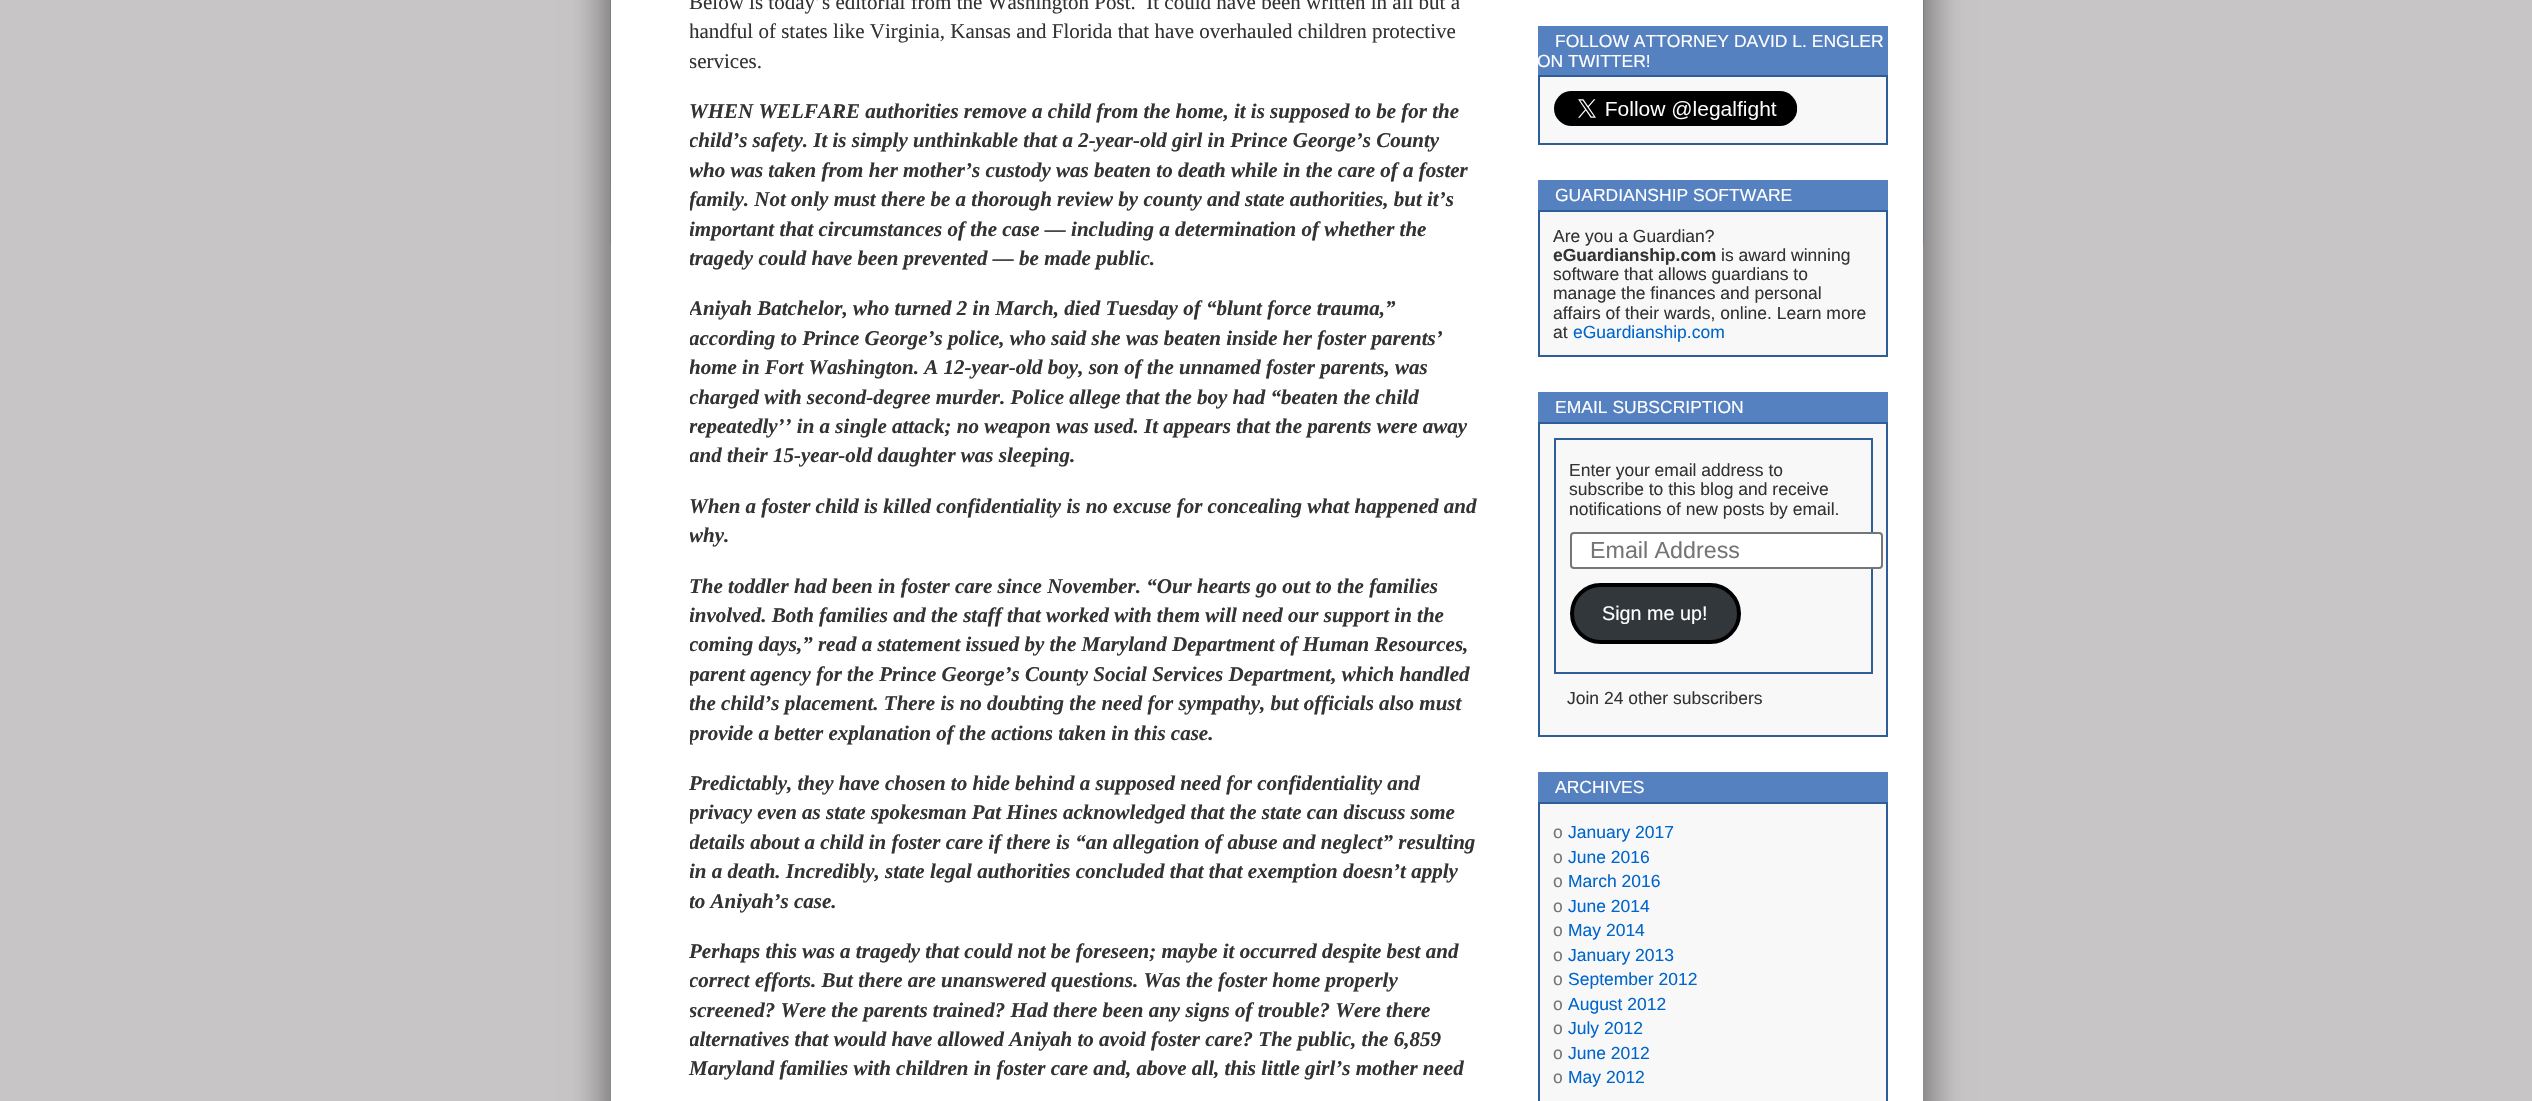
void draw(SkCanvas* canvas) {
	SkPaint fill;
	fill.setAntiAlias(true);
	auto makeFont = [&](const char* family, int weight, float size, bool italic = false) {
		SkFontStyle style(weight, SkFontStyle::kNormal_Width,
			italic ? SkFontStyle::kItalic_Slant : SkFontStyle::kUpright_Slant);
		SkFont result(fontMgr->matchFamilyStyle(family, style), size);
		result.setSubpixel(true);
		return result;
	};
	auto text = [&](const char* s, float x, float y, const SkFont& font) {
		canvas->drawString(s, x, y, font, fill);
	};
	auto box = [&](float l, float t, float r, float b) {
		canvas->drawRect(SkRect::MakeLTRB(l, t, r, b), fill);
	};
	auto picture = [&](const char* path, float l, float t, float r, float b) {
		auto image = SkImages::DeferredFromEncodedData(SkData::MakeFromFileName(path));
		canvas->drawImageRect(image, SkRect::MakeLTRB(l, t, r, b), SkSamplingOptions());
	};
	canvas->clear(0xFFC7C5C5);
	picture("image0.png", 610, 0, 1924, 246);
	fill.setColor(0x4D000000);
	fill.setMaskFilter(SkMaskFilter::MakeBlur(kNormal_SkBlurStyle, 14));
	canvas->drawRect(SkRect::MakeLTRB(597, -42, 1909, 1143), fill);
	fill.setMaskFilter(nullptr);
	fill.setMaskFilter(SkMaskFilter::MakeBlur(kNormal_SkBlurStyle, 14));
	canvas->drawRect(SkRect::MakeLTRB(625, -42, 1937, 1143), fill);
	fill.setMaskFilter(nullptr);
	fill.setColor(0xFFFFFFFF);
	box(611, 0, 1923, 1101);
	fill.setColor(0xFF5581C0);
	box(1538, 26, 1888, 75);
	fill.setColor(0xFFF8F8F8);
	canvas->drawRect(SkRect::MakeLTRB(1539, 76, 1887, 144), fill);
	fill.setStyle(SkPaint::kStroke_Style);
	fill.setStrokeWidth(2);
	fill.setColor(0xFF2E5D99);
	canvas->drawRect(SkRect::MakeLTRB(1539, 76, 1887, 144), fill);
	picture("image1.png", 1554, 91, 1798, 126);
	fill.setStyle(SkPaint::kFill_Style);
	fill.setColor(0xFF5581C0);
	box(1538, 180, 1888, 210);
	fill.setColor(0xFFF8F8F8);
	canvas->drawRect(SkRect::MakeLTRB(1539, 211, 1887, 356), fill);
	fill.setStyle(SkPaint::kStroke_Style);
	fill.setColor(0xFF2E5D99);
	canvas->drawRect(SkRect::MakeLTRB(1539, 211, 1887, 356), fill);
	fill.setStyle(SkPaint::kFill_Style);
	fill.setColor(0xFF5581C0);
	box(1538, 392, 1888, 422);
	fill.setColor(0xFFF8F8F8);
	canvas->drawRect(SkRect::MakeLTRB(1539, 423, 1887, 736), fill);
	fill.setStyle(SkPaint::kStroke_Style);
	fill.setColor(0xFF2E5D99);
	canvas->drawRect(SkRect::MakeLTRB(1539, 423, 1887, 736), fill);
	canvas->drawRect(SkRect::MakeLTRB(1555, 439, 1872, 673), fill);
	fill.setStyle(SkPaint::kFill_Style);
	fill.setColor(0xFFFFFFFF);
	canvas->drawRoundRect(SkRect::MakeLTRB(1571, 533, 1882, 568), 3, 3, fill);
	fill.setStyle(SkPaint::kStroke_Style);
	fill.setColor(0xFF767676);
	canvas->drawRoundRect(SkRect::MakeLTRB(1571, 533, 1882, 568), 3, 3, fill);
	fill.setStyle(SkPaint::kFill_Style);
	fill.setColor(0xFF32373C);
	canvas->drawRoundRect(SkRect::MakeLTRB(1572, 585, 1739, 642), 28.5f, 28.5f, fill);
	fill.setStyle(SkPaint::kStroke_Style);
	fill.setStrokeWidth(4);
	fill.setColor(0xFF000000);
	canvas->drawRoundRect(SkRect::MakeLTRB(1572, 585, 1739, 642), 28.5f, 28.5f, fill);
	fill.setStyle(SkPaint::kFill_Style);
	fill.setColor(0xFF5581C0);
	box(1538, 772, 1888, 802);
	fill.setColor(0xFFF8F8F8);
	canvas->drawRect(SkRect::MakeLTRB(1539, 803, 1887, 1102), fill);
	fill.setStyle(SkPaint::kStroke_Style);
	fill.setStrokeWidth(2);
	fill.setColor(0xFF2E5D99);
	canvas->drawRect(SkRect::MakeLTRB(1539, 803, 1887, 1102), fill);
	auto font1 = makeFont("Liberation Serif", 400, 21);
	fill.setStyle(SkPaint::kFill_Style);
	fill.setColor(0xFF333333);
	text("Below is today’s editorial from the Washington Post.  It could have been written in all but a", 689, 9, font1);
	canvas->save();
	canvas->clipRect(SkRect::MakeLTRB(690, 0, 1477, 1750));
	text("handful of states like Virginia, Kansas and Florida that have overhauled children protective", 689, 38, font1);
	text("services.", 689, 68, font1);
	canvas->restore();
	auto font2 = makeFont("Liberation Serif", 700, 21, true);
	text("WHEN WELFARE authorities remove a child from the home, it is supposed to be for the", 689, 118, font2);
	canvas->save();
	canvas->clipRect(SkRect::MakeLTRB(690, 0, 1477, 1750));
	text("child’s safety. It is simply unthinkable that a 2-year-old girl in Prince George’s County", 689, 147, font2);
	text("who was taken from her mother’s custody was beaten to death while in the care of a foster", 689, 177, font2);
	text("family. Not only must there be a thorough review by county and state authorities, but it’s", 689, 206, font2);
	text("important that circumstances of the case — including a determination of whether the", 689, 236, font2);
	text("tragedy could have been prevented — be made public.", 689, 265, font2);
	text("Aniyah Batchelor, who turned 2 in March, died Tuesday of “blunt force trauma,”", 689, 315, font2);
	text("according to Prince George’s police, who said she was beaten inside her foster parents’", 689, 345, font2);
	text("home in Fort Washington. A 12-year-old boy, son of the unnamed foster parents, was", 689, 374, font2);
	text("charged with second-degree murder. Police allege that the boy had “beaten the child", 689, 404, font2);
	text("repeatedly’’ in a single attack; no weapon was used. It appears that the parents were away", 689, 433, font2);
	text("and their 15-year-old daughter was sleeping.", 689, 462, font2);
	canvas->restore();
	text("When a foster child is killed confidentiality is no excuse for concealing what happened and", 689, 513, font2);
	canvas->save();
	canvas->clipRect(SkRect::MakeLTRB(690, 0, 1477, 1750));
	text("why.", 689, 542, font2);
	canvas->restore();
	text("The toddler had been in foster care since November. “Our hearts go out to the families", 689, 593, font2);
	canvas->save();
	canvas->clipRect(SkRect::MakeLTRB(690, 0, 1477, 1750));
	text("involved. Both families and the staff that worked with them will need our support in the", 689, 622, font2);
	text("coming days,” read a statement issued by the Maryland Department of Human Resources,", 689, 651, font2);
	text("parent agency for the Prince George’s County Social Services Department, which handled", 689, 681, font2);
	text("the child’s placement. There is no doubting the need for sympathy, but officials also must", 689, 710, font2);
	text("provide a better explanation of the actions taken in this case.", 689, 740, font2);
	canvas->restore();
	text("Predictably, they have chosen to hide behind a supposed need for confidentiality and", 689, 790, font2);
	canvas->save();
	canvas->clipRect(SkRect::MakeLTRB(690, 0, 1477, 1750));
	text("privacy even as state spokesman Pat Hines acknowledged that the state can discuss some", 689, 819, font2);
	text("details about a child in foster care if there is “an allegation of abuse and neglect” resulting", 689, 849, font2);
	text("in a death. Incredibly, state legal authorities concluded that that exemption doesn’t apply", 689, 878, font2);
	text("to Aniyah’s case.", 689, 908, font2);
	canvas->restore();
	text("Perhaps this was a tragedy that could not be foreseen; maybe it occurred despite best and", 689, 958, font2);
	canvas->save();
	canvas->clipRect(SkRect::MakeLTRB(690, 0, 1477, 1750));
	text("correct efforts. But there are unanswered questions. Was the foster home properly", 689, 987, font2);
	text("screened? Were the parents trained? Had there been any signs of trouble? Were there", 689, 1017, font2);
	text("alternatives that would have allowed Aniyah to avoid foster care? The public, the 6,859", 689, 1046, font2);
	canvas->restore();
	text("Maryland families with children in foster care and, above all, this little girl’s mother need", 689, 1075, font2);
	auto font3 = makeFont("Liberation Sans", 400, 17.5f);
	fill.setColor(0xFFFFFFFF);
	text("FOLLOW ATTORNEY DAVID L. ENGLER", 1555, 47, font3);
	text("ON TWITTER!", 1537, 67, font3);
	text("GUARDIANSHIP SOFTWARE", 1555, 201, font3);
	fill.setColor(0xFF333333);
	text("Are you a Guardian?", 1553, 242, font3);
	auto font4 = makeFont("Liberation Sans", 700, 17.5f);
	text("eGuardianship.com", 1553, 261, font4);
	text("is award winning", 1721, 261, font3);
	text("software that allows guardians to", 1553, 280, font3);
	text("manage the finances and personal", 1553, 299, font3);
	text("affairs of their wards, online. Learn more", 1553, 319, font3);
	text("at", 1553, 338, font3);
	fill.setColor(0xFF0066CC);
	text("eGuardianship.com", 1573, 338, font3);
	fill.setColor(0xFFFFFFFF);
	text("EMAIL SUBSCRIPTION", 1555, 413, font3);
	fill.setColor(0xFF333333);
	text("Enter your email address to", 1569, 476, font3);
	text("subscribe to this blog and receive", 1569, 495, font3);
	text("notifications of new posts by email.", 1569, 515, font3);
	auto font5 = makeFont("Liberation Sans", 400, 23.25f);
	fill.setColor(0xFF757575);
	text("Email Address", 1590, 558, font5);
	auto font6 = makeFont("Liberation Sans", 400, 19.75f);
	fill.setColor(0xFFFFFFFF);
	text("Sign me up!", 1602, 620, font6);
	fill.setColor(0xFF333333);
	text("Join 24 other subscribers", 1567, 704, font3);
	fill.setColor(0xFFFFFFFF);
	text("ARCHIVES", 1555, 793, font3);
	fill.setColor(0xFF757575);
	text("o", 1553, 838, font3);
	fill.setColor(0xFF0066CC);
	text("January 2017", 1568, 838, font3);
	fill.setColor(0xFF757575);
	text("o", 1553, 863, font3);
	fill.setColor(0xFF0066CC);
	text("June 2016", 1568, 863, font3);
	fill.setColor(0xFF757575);
	text("o", 1553, 887, font3);
	fill.setColor(0xFF0066CC);
	text("March 2016", 1568, 887, font3);
	fill.setColor(0xFF757575);
	text("o", 1553, 912, font3);
	fill.setColor(0xFF0066CC);
	text("June 2014", 1568, 912, font3);
	fill.setColor(0xFF757575);
	text("o", 1553, 936, font3);
	fill.setColor(0xFF0066CC);
	text("May 2014", 1568, 936, font3);
	fill.setColor(0xFF757575);
	text("o", 1553, 961, font3);
	fill.setColor(0xFF0066CC);
	text("January 2013", 1568, 961, font3);
	fill.setColor(0xFF757575);
	text("o", 1553, 985, font3);
	fill.setColor(0xFF0066CC);
	text("September 2012", 1568, 985, font3);
	fill.setColor(0xFF757575);
	text("o", 1553, 1010, font3);
	fill.setColor(0xFF0066CC);
	text("August 2012", 1568, 1010, font3);
	fill.setColor(0xFF757575);
	text("o", 1553, 1034, font3);
	fill.setColor(0xFF0066CC);
	text("July 2012", 1568, 1034, font3);
	fill.setColor(0xFF757575);
	text("o", 1553, 1059, font3);
	fill.setColor(0xFF0066CC);
	text("June 2012", 1568, 1059, font3);
	fill.setColor(0xFF757575);
	text("o", 1553, 1083, font3);
	fill.setColor(0xFF0066CC);
	text("May 2012", 1568, 1083, font3);
}
